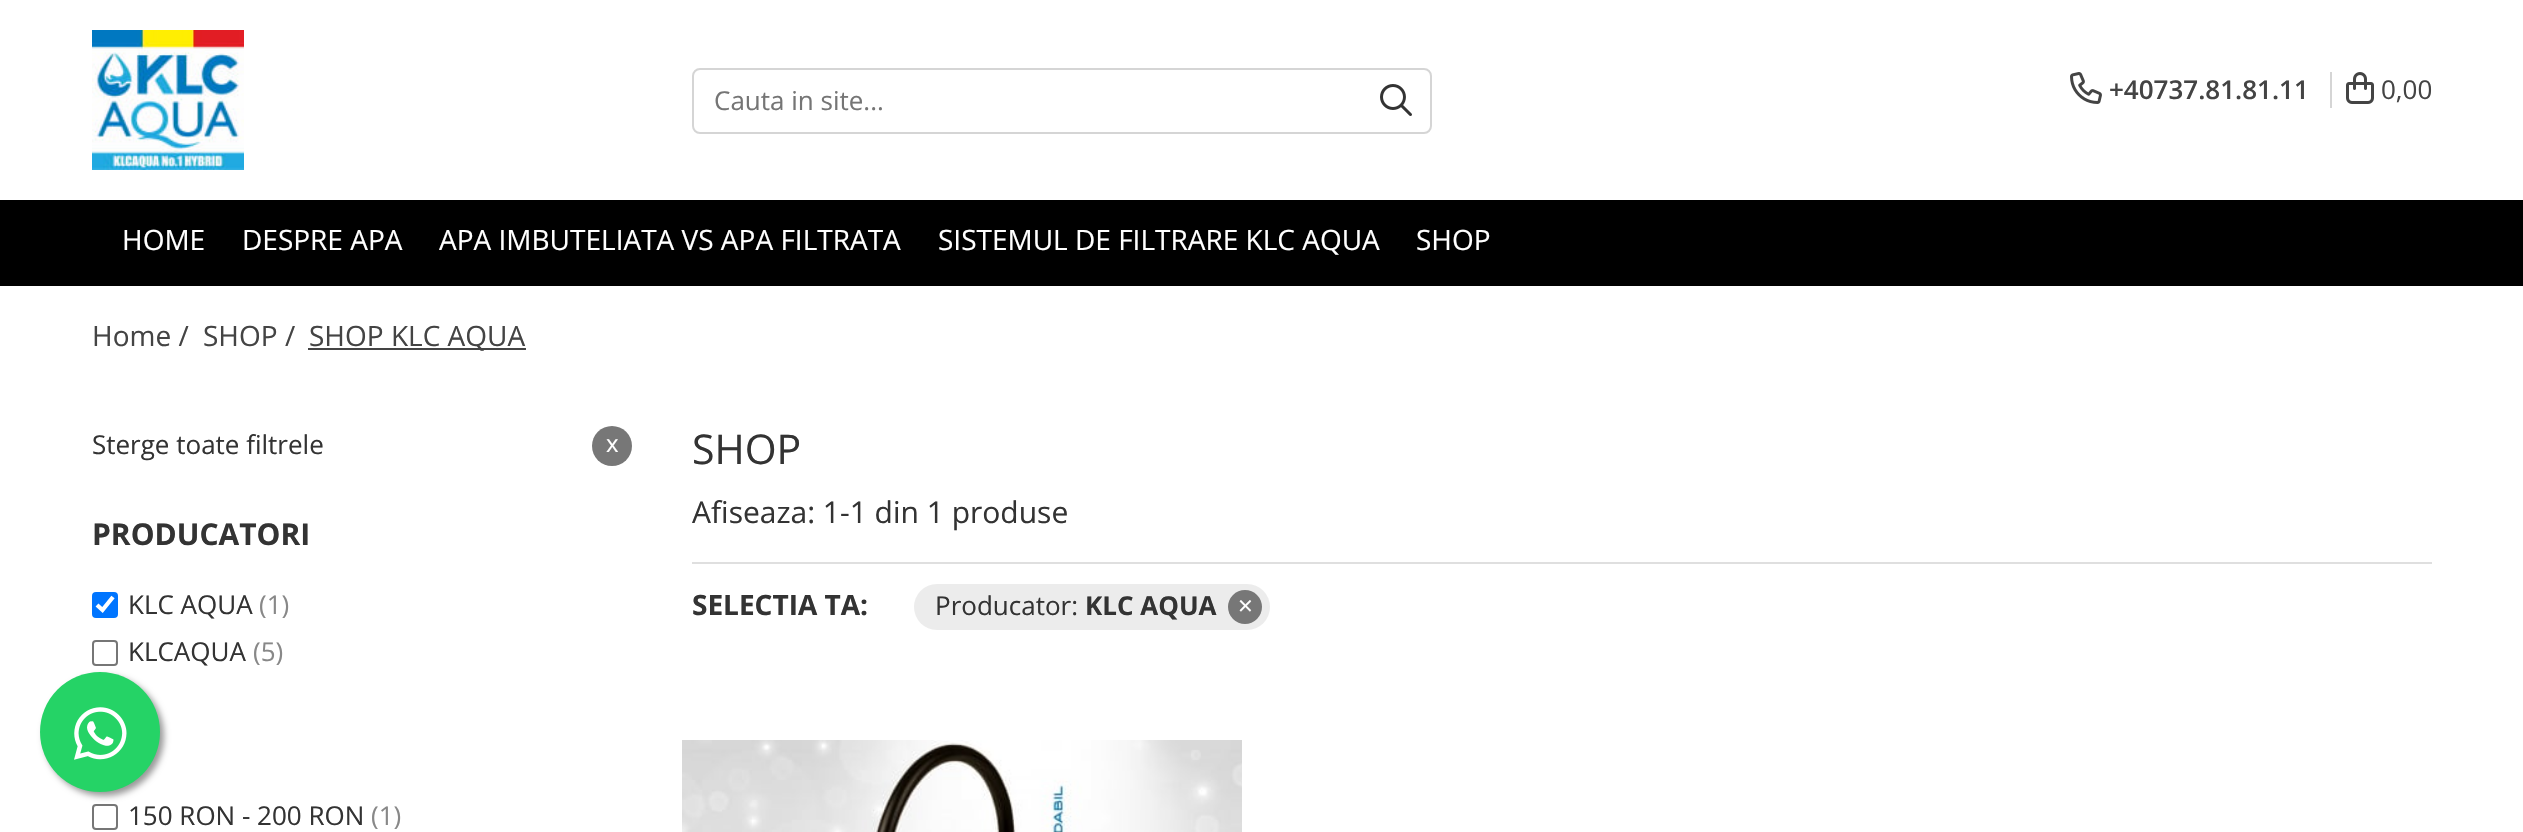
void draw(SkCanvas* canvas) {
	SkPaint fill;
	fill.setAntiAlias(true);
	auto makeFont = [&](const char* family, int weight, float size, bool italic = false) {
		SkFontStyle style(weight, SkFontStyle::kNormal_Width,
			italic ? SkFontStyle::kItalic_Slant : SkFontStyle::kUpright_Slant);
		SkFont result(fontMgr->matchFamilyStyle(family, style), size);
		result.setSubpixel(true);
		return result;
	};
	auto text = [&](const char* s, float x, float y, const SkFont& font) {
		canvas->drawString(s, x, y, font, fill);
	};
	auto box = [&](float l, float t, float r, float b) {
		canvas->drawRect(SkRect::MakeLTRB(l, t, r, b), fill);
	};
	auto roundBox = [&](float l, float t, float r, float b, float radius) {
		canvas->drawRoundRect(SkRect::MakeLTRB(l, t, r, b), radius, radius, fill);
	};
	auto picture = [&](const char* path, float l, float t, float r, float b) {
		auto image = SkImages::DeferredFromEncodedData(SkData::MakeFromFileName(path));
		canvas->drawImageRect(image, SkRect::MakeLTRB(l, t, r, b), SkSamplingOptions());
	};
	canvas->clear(0xFFFFFFFF);
	picture("image0.png", 92, 30, 244, 170);
	fill.setStyle(SkPaint::kStroke_Style);
	fill.setStrokeWidth(2);
	fill.setColor(0xFFD5D5D5);
	canvas->drawRoundRect(SkRect::MakeLTRB(693, 69, 1431, 133), 7, 7, fill);
	picture("image1.png", 1380, 84, 1412, 116);
	picture("image2.png", 2070, 72, 2102, 104);
	fill.setStyle(SkPaint::kFill_Style);
	box(2330, 72, 2332, 108);
	picture("image3.png", 2346, 72, 2374, 104);
	fill.setColor(0xFF000000);
	box(0, 200, 2523, 286);
	fill.setColor(0xFF444444);
	box(308, 348, 526, 350);
	fill.setColor(0xFF777777);
	canvas->drawCircle(612, 446, 20, fill);
	fill.setColor(0xFF0075FF);
	roundBox(92, 592, 118, 618, 4);
	fill.setStyle(SkPaint::kStroke_Style);
	fill.setStrokeWidth(4.2f);
	fill.setColor(0xFFFFFFFF);
	canvas->drawPath(SkPathBuilder().moveTo(97, 605).lineTo(102.5f, 610).lineTo(113, 597).detach(), fill);
	fill.setStrokeWidth(2);
	fill.setColor(0xFF767676);
	canvas->drawRoundRect(SkRect::MakeLTRB(93, 641, 117, 665), 3, 3, fill);
	canvas->drawRoundRect(SkRect::MakeLTRB(93, 805, 117, 829), 3, 3, fill);
	fill.setStyle(SkPaint::kFill_Style);
	fill.setColor(0xFFDFDFDF);
	box(692, 562, 2432, 564);
	fill.setColor(0xFFECECEC);
	roundBox(914, 584, 1270, 630, 23);
	fill.setColor(0xFF777777);
	canvas->drawCircle(1245, 607, 17, fill);
	picture("image4.png", 682, 740, 1242, 832);
	fill.setColor(0xFF999999);
	fill.setMaskFilter(SkMaskFilter::MakeBlur(kNormal_SkBlurStyle, 3));
	canvas->drawRoundRect(SkRect::MakeLTRB(44, 676, 164, 796), 60, 60, fill);
	fill.setMaskFilter(nullptr);
	fill.setColor(0xFF25D366);
	canvas->drawCircle(100, 732, 60, fill);
	picture("image5.png", 74, 707, 127, 760);
	auto font1 = makeFont("Open Sans", 400, 26);
	fill.setColor(0xFF757575);
	text("Cauta in site...", 714, 110, font1);
	auto font2 = makeFont("Open Sans", 600, 26);
	fill.setColor(0xFF444444);
	text("+40737.81.81.11", 2109, 99, font2);
	text("0,00", 2381, 99, font1);
	auto font3 = makeFont("Open Sans", 400, 28);
	fill.setColor(0xFFFFFFFF);
	text("HOME", 122, 250, font3);
	text("DESPRE APA", 242, 250, font3);
	text("APA IMBUTELIATA VS APA FILTRATA", 439, 250, font3);
	text("SISTEMUL DE FILTRARE KLC AQUA", 938, 250, font3);
	text("SHOP", 1416, 250, font3);
	fill.setColor(0xFF444444);
	text("Home /", 92, 346, font3);
	text("SHOP /", 203, 346, font3);
	text("SHOP KLC AQUA", 309, 346, font3);
	fill.setColor(0xFF333333);
	text("Sterge toate filtrele", 92, 454, font1);
	auto font4 = makeFont("Open Sans", 400, 24);
	fill.setColor(0xFFFFFFFF);
	text("x", 606, 452, font4);
	auto font5 = makeFont("Open Sans", 700, 30);
	fill.setColor(0xFF333333);
	text("PRODUCATORI", 92, 545, font5);
	text("KLC AQUA", 128, 614, font1);
	fill.setColor(0xFF888888);
	text("(1)", 259, 614, font1);
	fill.setColor(0xFF333333);
	text("KLCAQUA", 128, 661, font1);
	fill.setColor(0xFF888888);
	text("(5)", 253, 661, font1);
	fill.setColor(0xFF333333);
	text("150 RON - 200 RON", 128, 825, font1);
	fill.setColor(0xFF888888);
	text("(1)", 371, 825, font1);
	auto font6 = makeFont("Open Sans", 400, 41);
	fill.setColor(0xFF333333);
	text("SHOP", 692, 464, font6);
	auto font7 = makeFont("Open Sans", 400, 30);
	text("Afiseaza: 1-1 din 1 produse", 692, 523, font7);
	auto font8 = makeFont("Open Sans", 700, 28);
	text("SELECTIA TA:", 692, 615, font8);
	text("Producator:", 935, 615, font1);
	auto font9 = makeFont("Open Sans", 700, 26);
	text("KLC AQUA", 1085, 615, font9);
	fill.setColor(0xFFFFFFFF);
	text("×", 1238, 615, font1);
}
